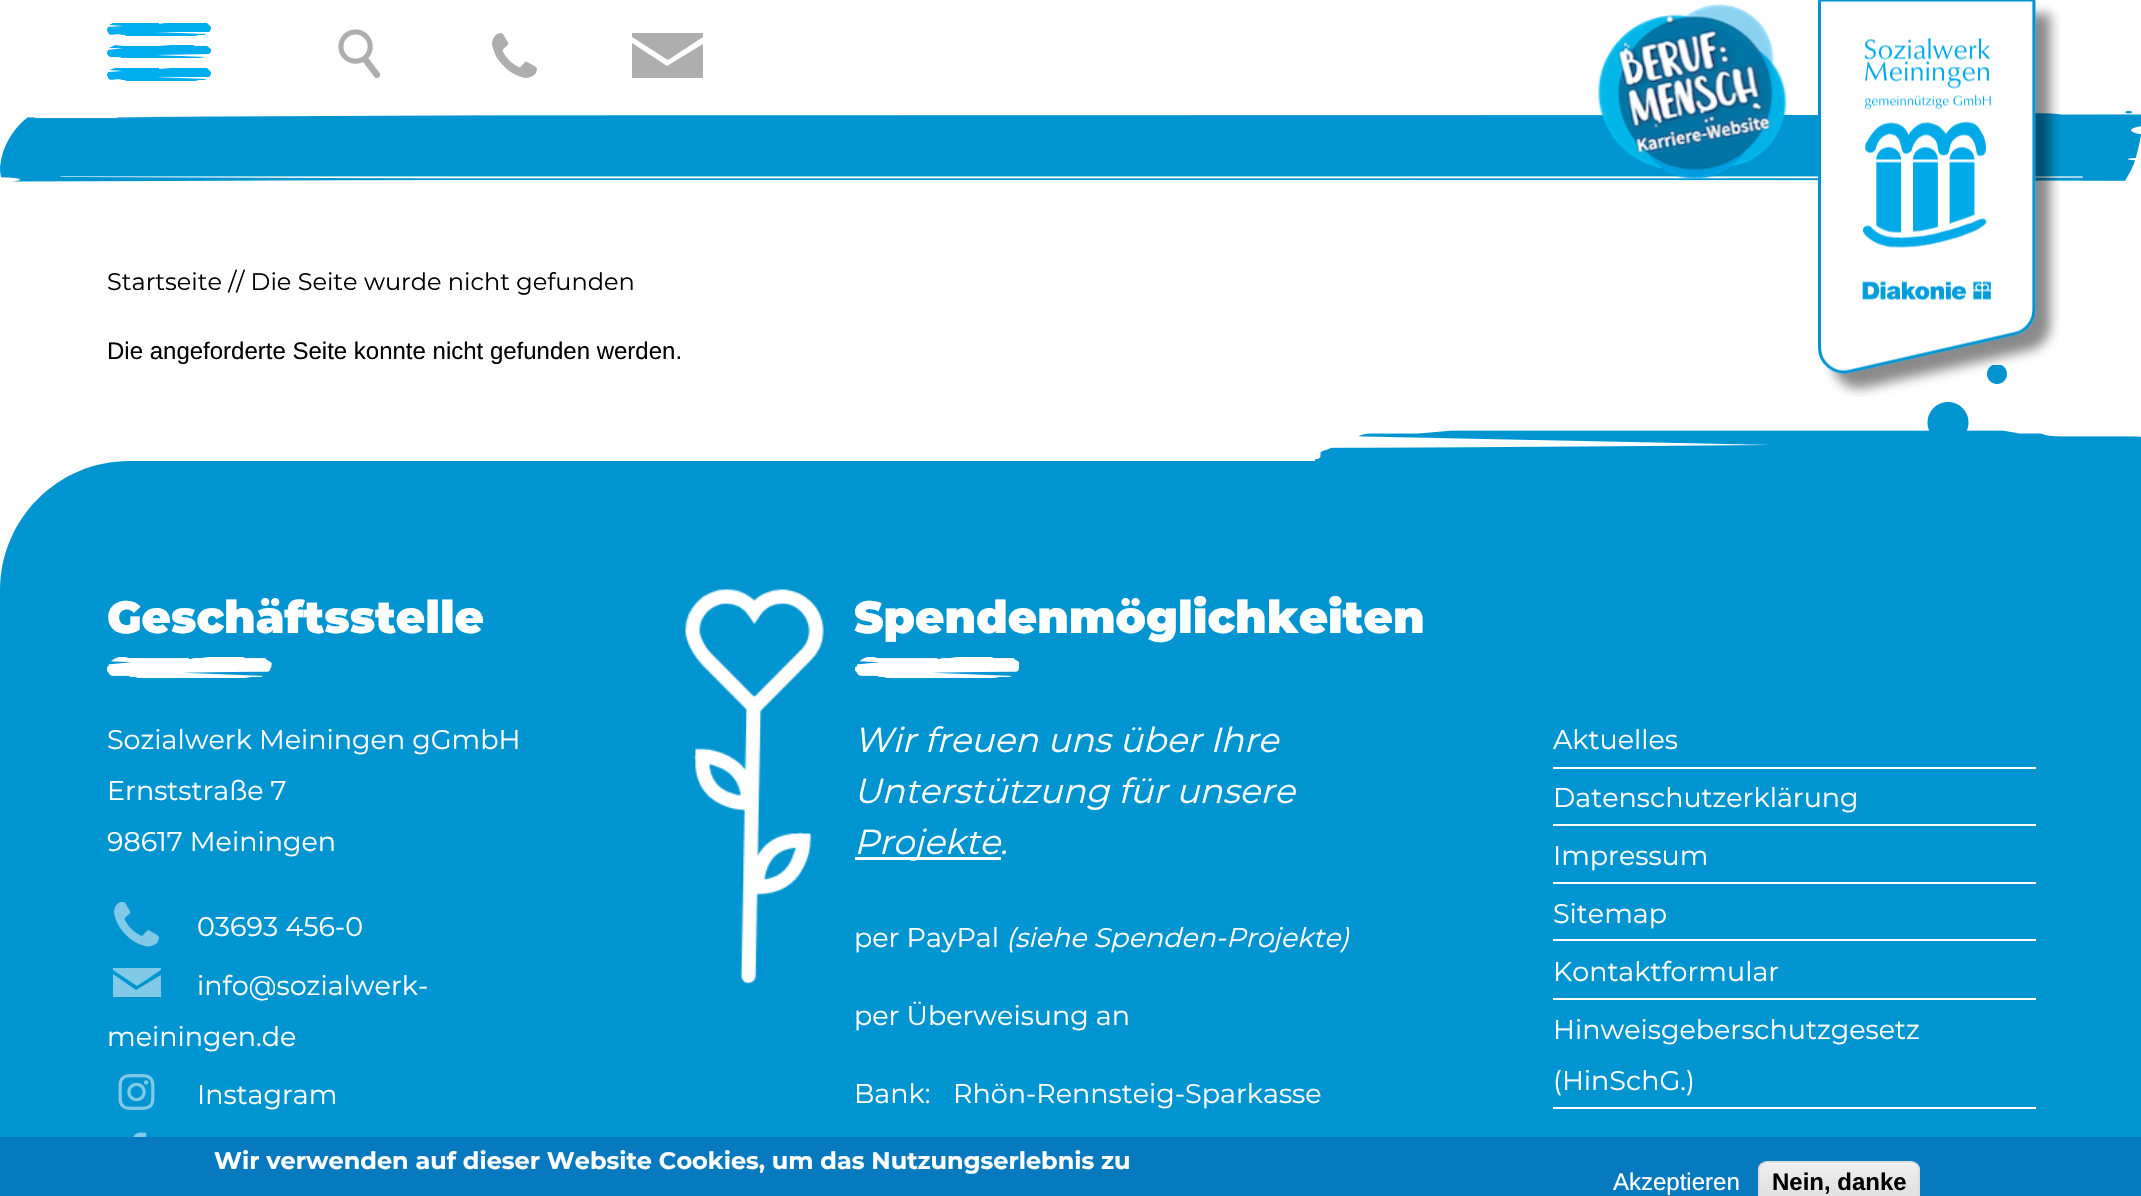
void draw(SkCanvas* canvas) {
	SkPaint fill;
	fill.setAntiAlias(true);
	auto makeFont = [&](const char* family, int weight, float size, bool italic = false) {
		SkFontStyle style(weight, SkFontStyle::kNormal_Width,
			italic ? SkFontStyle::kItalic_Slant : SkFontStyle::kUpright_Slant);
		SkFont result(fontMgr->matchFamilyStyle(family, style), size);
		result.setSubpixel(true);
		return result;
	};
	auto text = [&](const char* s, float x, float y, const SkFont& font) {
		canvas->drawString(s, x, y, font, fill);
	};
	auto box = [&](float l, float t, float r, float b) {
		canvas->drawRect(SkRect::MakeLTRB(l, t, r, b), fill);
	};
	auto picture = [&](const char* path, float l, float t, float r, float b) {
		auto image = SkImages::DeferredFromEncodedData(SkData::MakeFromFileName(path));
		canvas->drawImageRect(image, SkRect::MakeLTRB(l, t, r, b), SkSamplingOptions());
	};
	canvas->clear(0xFFFFFFFF);
	fill.setColor(0xFF00ADEF);
	canvas->drawPath(SkPathBuilder().moveTo(211, 73).lineTo(211, 72).lineTo(207, 68).lineTo(195, 68).lineTo(193, 68).lineTo(171, 68).lineTo(159, 69).lineTo(159, 68).lineTo(123, 68).lineTo(115, 68).lineTo(109, 70).lineTo(123, 71).lineTo(108, 72).lineTo(108, 73).cubicTo(107, 73, 107, 75, 107, 76).lineTo(108, 77).cubicTo(108, 78, 109, 79, 109, 79).cubicTo(109, 81, 120, 78, 122, 80).cubicTo(129, 80, 121, 80, 127, 81).lineTo(195, 81).lineTo(199, 80).lineTo(205, 80).lineTo(206, 79).lineTo(155, 77).lineTo(209, 77).lineTo(210, 76).cubicTo(211, 75, 210, 74, 211, 74).close().detach(), fill);
	canvas->save();
	canvas->clipRect(SkRect::MakeLTRB(107, 23, 212, 36));
	canvas->drawPath(SkPathBuilder().moveTo(211, 28).lineTo(211, 27).lineTo(207, 23).lineTo(195, 23).lineTo(193, 22).lineTo(171, 22).lineTo(159, 24).lineTo(159, 23).lineTo(123, 23).lineTo(115, 22).lineTo(109, 25).lineTo(123, 26).lineTo(108, 27).lineTo(108, 28).cubicTo(107, 28, 107, 30, 107, 31).lineTo(108, 32).cubicTo(108, 33, 109, 34, 109, 34).cubicTo(109, 36, 120, 33, 122, 35).cubicTo(129, 35, 121, 35, 127, 36).lineTo(195, 36).lineTo(199, 35).lineTo(205, 35).lineTo(206, 34).lineTo(155, 32).lineTo(209, 32).lineTo(210, 31).cubicTo(211, 30, 210, 29, 211, 29).close().detach(), fill);
	canvas->restore();
	canvas->drawPath(SkPathBuilder().moveTo(211, 51).lineTo(211, 49).lineTo(207, 46).lineTo(195, 46).lineTo(193, 45).lineTo(171, 45).lineTo(159, 46).lineTo(123, 46).lineTo(115, 45).lineTo(109, 48).lineTo(123, 48).lineTo(108, 50).lineTo(108, 51).cubicTo(107, 51, 107, 52, 107, 54).lineTo(108, 55).cubicTo(108, 56, 109, 56, 109, 56).cubicTo(109, 58, 120, 56, 122, 58).cubicTo(129, 58, 121, 57, 127, 58).lineTo(195, 58).lineTo(199, 58).lineTo(205, 57).lineTo(206, 57).lineTo(155, 55).lineTo(209, 54).lineTo(210, 53).cubicTo(211, 53, 210, 52, 211, 52).close().detach(), fill);
	picture("image0.png", 338, 29, 381, 79);
	picture("image1.png", 492, 33, 537, 78);
	fill.setColor(0xFFAEAEAE);
	canvas->drawPath(SkPathBuilder().moveTo(668, 60).lineTo(703, 37).lineTo(703, 33).lineTo(632, 33).lineTo(632, 37).close().detach(), fill);
	canvas->drawPath(SkPathBuilder().moveTo(667, 66).lineTo(632, 43).lineTo(632, 78).lineTo(703, 78).lineTo(703, 44).close().detach(), fill);
	picture("image4.png", 0, 111, 2141, 182);
	picture("image2.png", 1597, 4, 1788, 179);
	picture("image5.png", 1315, 365, 2141, 461);
	picture("image3.png", 1818, 0, 2060, 397);
	fill.setColor(0xFF0094D1);
	canvas->drawPath(SkPathBuilder().moveTo(129, 461).lineTo(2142, 461).lineTo(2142, 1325).lineTo(0, 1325).lineTo(0, 590).cubicTo(0, 519, 58, 461, 129, 461).close().detach(), fill);
	picture("image6.png", 107, 657, 272, 678);
	picture("image7.png", 114, 902, 159, 947);
	fill.setColor(0xFF80CAE8);
	canvas->drawPath(SkPathBuilder().moveTo(137, 986).lineTo(161, 970).lineTo(161, 968).lineTo(113, 968).lineTo(113, 970).close().detach(), fill);
	canvas->drawPath(SkPathBuilder().moveTo(136, 990).lineTo(113, 974).lineTo(113, 997).lineTo(161, 997).lineTo(161, 975).close().detach(), fill);
	picture("image8.png", 118, 1074, 155, 1110);
	picture("image9.png", 133, 1132, 147, 1137);
	picture("image10.png", 685, 589, 824, 984);
	picture("image11.png", 855, 657, 1019, 678);
	fill.setColor(0xFFFFFFFF);
	box(855, 857, 1001, 860);
	box(1553, 767, 2036, 769);
	box(1553, 824, 2036, 826);
	box(1553, 882, 2036, 884);
	box(1553, 939, 2036, 941);
	box(1553, 998, 2036, 1000);
	box(1553, 1107, 2036, 1109);
	fill.setColor(0xFF0779BF);
	box(0, 1137, 2141, 1196);
	canvas->save();
	canvas->clipPath(SkPathBuilder().moveTo(1767, 1161).lineTo(1911, 1161).cubicTo(1916, 1161, 1920, 1165, 1920, 1170).lineTo(1920, 1194).cubicTo(1920, 1199, 1916, 1203, 1911, 1203).lineTo(1767, 1203).cubicTo(1762, 1203, 1758, 1199, 1758, 1194).lineTo(1758, 1170).cubicTo(1758, 1165, 1762, 1161, 1767, 1161).close().detach(), true);
	{
		const SkColor colors[] = {0xFFEDEDED, 0xFFDFDFDF};
		const float stops[] = {0.05f, 1};
		const SkPoint ends[] = {{1839, 1163}, {1839, 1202}};
		fill.setShader(SkGradientShader::MakeLinear(ends, colors, stops, 2, SkTileMode::kClamp));
		fill.setAlpha(255);
	}
	box(1758, 1163, 1920, 1196);
	canvas->restore();
	fill.setShader(nullptr);
	fill.setColor(0xFFFFFFFF);
	canvas->drawPath(SkPathBuilder().moveTo(1767, 1164).lineTo(1911, 1164).cubicTo(1915, 1164, 1918, 1167, 1918, 1172).lineTo(1918, 1196).lineTo(1918, 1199).cubicTo(1918, 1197, 1919, 1196, 1919, 1194).lineTo(1919, 1171).cubicTo(1919, 1167, 1915, 1163, 1911, 1163).lineTo(1768, 1163).cubicTo(1764, 1163, 1760, 1167, 1760, 1171).lineTo(1760, 1172).cubicTo(1760, 1167, 1763, 1164, 1767, 1164).close().detach(), fill);
	fill.setStyle(SkPaint::kStroke_Style);
	fill.setStrokeWidth(2);
	fill.setColor(0xFFDCDCDC);
	canvas->drawRoundRect(SkRect::MakeLTRB(1759, 1162, 1919, 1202), 8, 8, fill);
	auto font1 = makeFont("Montserrat", 400, 24);
	fill.setStyle(SkPaint::kFill_Style);
	fill.setColor(0xFF000000);
	text("Startseite // Die Seite wurde nicht gefunden", 107, 290, font1);
	auto font2 = makeFont("Liberation Sans", 400, 24);
	text("Die angeforderte Seite konnte nicht gefunden werden.", 107, 359, font2);
	auto font3 = makeFont("Montserrat", 900, 45);
	fill.setColor(0xFFFFFFFF);
	text("Geschäftsstelle", 107, 633, font3);
	auto font4 = makeFont("Montserrat", 400, 27);
	text("Sozialwerk Meiningen gGmbH", 107, 749, font4);
	text("Ernststraße 7", 107, 800, font4);
	text("98617 Meiningen", 107, 851, font4);
	text("03693 456-0", 197, 936, font4);
	text("info@sozialwerk-", 197, 995, font4);
	text("meiningen.de", 107, 1046, font4);
	text("Instagram", 197, 1104, font4);
	text("Spendenmöglichkeiten", 854, 633, font3);
	auto font5 = makeFont("Montserrat", 400, 34.5f, true);
	text("Wir freuen uns über Ihre", 854, 752, font5);
	text("Unterstützung für unsere", 854, 803, font5);
	text("Projekte.", 854, 854, font5);
	text("per PayPal", 854, 947, font4);
	auto font6 = makeFont("Montserrat", 400, 27, true);
	text("(siehe Spenden-Projekte)", 1006, 947, font6);
	text("per Überweisung an", 854, 1025, font4);
	text("Bank:", 854, 1103, font4);
	text("Rhön-Rennsteig-Sparkasse", 953, 1103, font4);
	text("Aktuelles", 1553, 749, font4);
	text("Datenschutzerklärung", 1553, 807, font4);
	text("Impressum", 1553, 865, font4);
	text("Sitemap", 1553, 923, font4);
	text("Kontaktformular", 1553, 981, font4);
	text("Hinweisgeberschutzgesetz", 1553, 1039, font4);
	text("(HinSchG.)", 1553, 1090, font4);
	auto font7 = makeFont("Montserrat", 700, 24);
	text("Wir verwenden auf dieser Website Cookies, um das Nutzungserlebnis zu", 214, 1169, font7);
	text("Akzeptieren", 1613, 1190, font2);
	auto font8 = makeFont("Liberation Sans", 700, 24);
	fill.setColor(0xFF000000);
	text("Nein, danke", 1772, 1190, font8);
}
